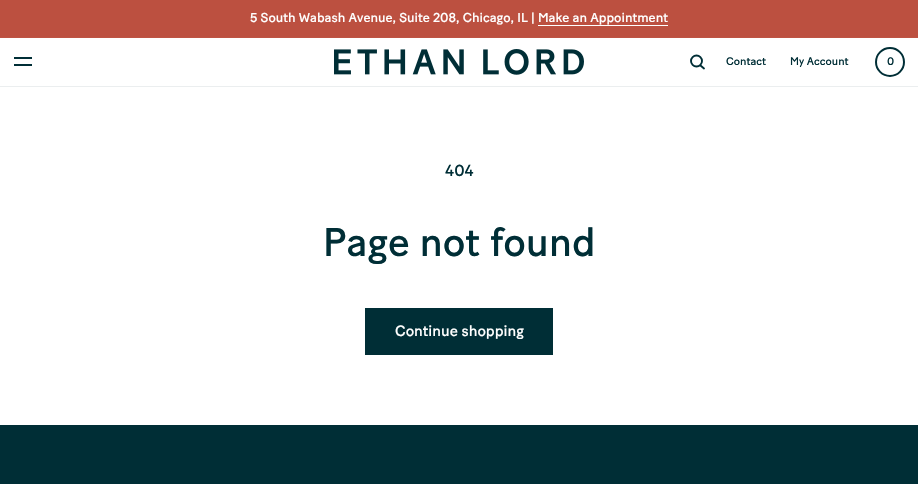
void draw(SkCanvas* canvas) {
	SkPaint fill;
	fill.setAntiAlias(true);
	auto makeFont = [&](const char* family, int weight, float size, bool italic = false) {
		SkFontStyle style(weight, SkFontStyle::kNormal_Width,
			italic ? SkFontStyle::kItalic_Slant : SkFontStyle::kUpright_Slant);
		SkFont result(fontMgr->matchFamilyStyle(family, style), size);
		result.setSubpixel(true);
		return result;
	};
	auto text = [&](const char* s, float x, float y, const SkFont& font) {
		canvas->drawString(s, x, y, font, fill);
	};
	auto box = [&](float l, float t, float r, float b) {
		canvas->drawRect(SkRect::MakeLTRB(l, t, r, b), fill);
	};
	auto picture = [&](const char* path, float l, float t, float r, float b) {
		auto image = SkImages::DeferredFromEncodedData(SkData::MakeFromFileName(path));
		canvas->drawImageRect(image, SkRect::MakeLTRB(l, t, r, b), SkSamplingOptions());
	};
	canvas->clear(0xFFFFFFFF);
	fill.setColor(0xFFBE5444);
	box(0, 37, 918, 38);
	fill.setColor(0xFFBC5040);
	box(0, 0, 918, 37);
	fill.setColor(0xFFFFFFFF);
	box(538, 25, 668, 26);
	fill.setColor(0xFFEBEEEF);
	box(0, 86, 918, 87);
	fill.setColor(0xFF002E36);
	box(14, 57, 32, 59);
	box(14, 64, 32, 66);
	picture("image0.png", 334, 49, 584, 75);
	fill.setStyle(SkPaint::kStroke_Style);
	fill.setStrokeWidth(1.9f);
	canvas->drawCircle(696.5f, 61, 5.5f, fill);
	fill.setStrokeCap(SkPaint::kRound_Cap);
	canvas->drawPath(SkPathBuilder().moveTo(704, 68.5f).lineTo(700.5f, 65.5f).detach(), fill);
	fill.setStrokeWidth(2);
	fill.setStrokeCap(SkPaint::kButt_Cap);
	canvas->drawCircle(890, 62, 14, fill);
	fill.setStyle(SkPaint::kFill_Style);
	box(365, 308, 553, 355);
	box(0, 425, 918, 484);
	auto font1 = makeFont("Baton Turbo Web", 400, 13);
	fill.setColor(0xFFFFFFFF);
	text("5 South Wabash Avenue, Suite 208, Chicago, IL | Make an Appointment", 250, 22, font1);
	auto font2 = makeFont("Baton Turbo Web", 400, 11);
	fill.setColor(0xFF002E36);
	text("Contact", 726, 65, font2);
	text("My Account", 790, 65, font2);
	text("0", 887, 65, font2);
	auto font3 = makeFont("Baton Turbo Web", 400, 16);
	text("404", 445, 176, font3);
	auto font4 = makeFont("Baton Turbo Web", 400, 40);
	text("Page not found", 323, 256, font4);
	auto font5 = makeFont("Baton Turbo Web", 400, 15);
	fill.setColor(0xFFFFFFFF);
	text("Continue shopping", 395, 336, font5);
}
